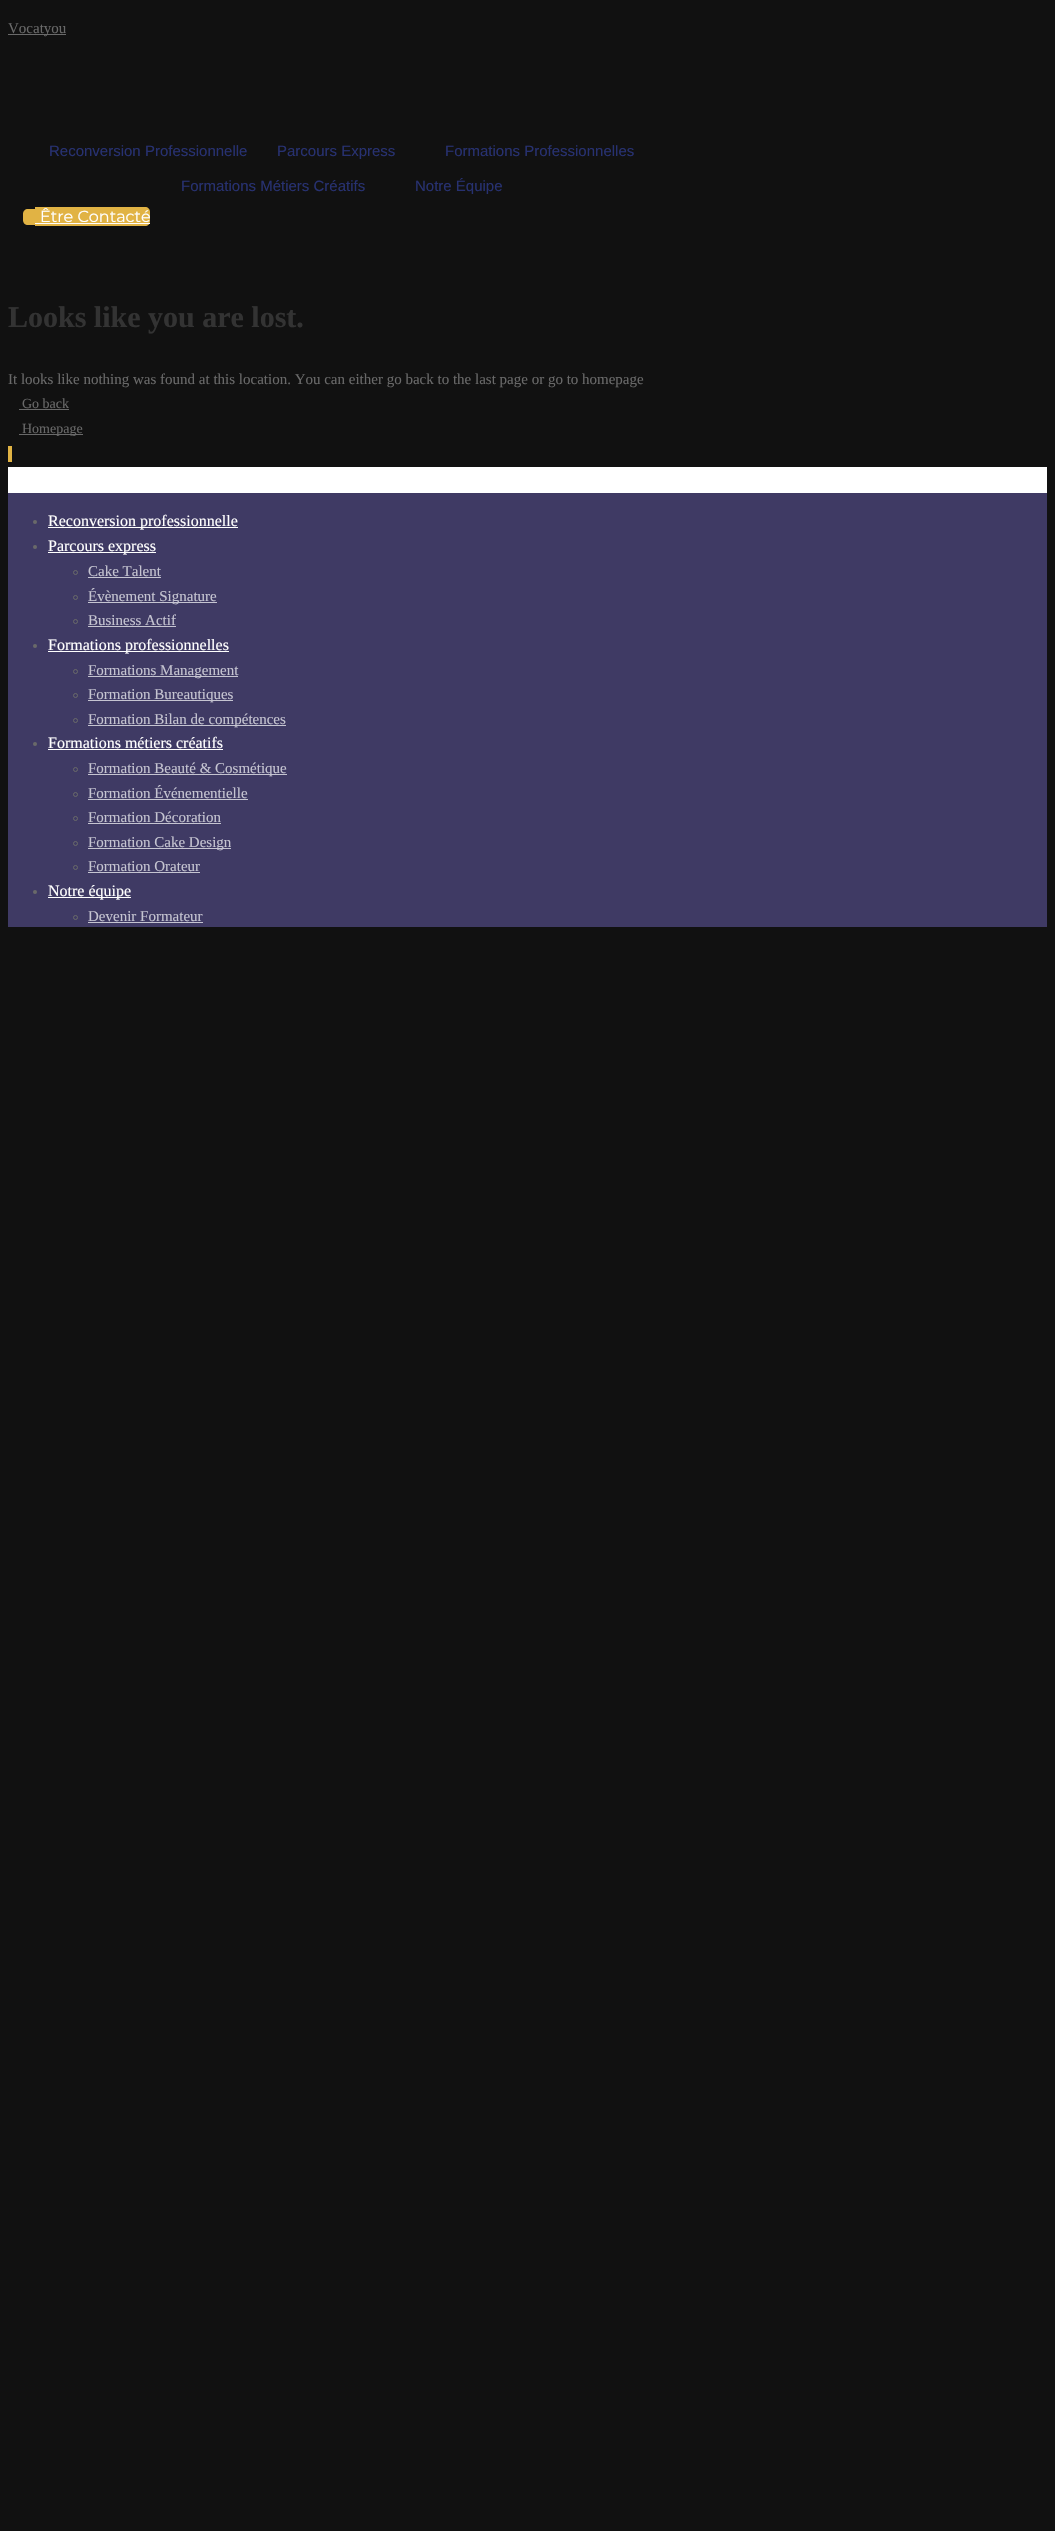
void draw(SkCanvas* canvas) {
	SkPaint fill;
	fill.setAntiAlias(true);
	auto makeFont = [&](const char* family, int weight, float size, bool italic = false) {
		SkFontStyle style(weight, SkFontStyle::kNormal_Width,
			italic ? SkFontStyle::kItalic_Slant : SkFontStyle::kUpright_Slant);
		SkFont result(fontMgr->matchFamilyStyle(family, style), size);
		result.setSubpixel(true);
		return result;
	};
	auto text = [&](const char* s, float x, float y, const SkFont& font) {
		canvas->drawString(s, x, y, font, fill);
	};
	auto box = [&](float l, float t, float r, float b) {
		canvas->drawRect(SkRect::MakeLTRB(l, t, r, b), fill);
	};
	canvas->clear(0xFF111111);
	fill.setColor(0xFF696969);
	box(8, 34, 66, 35);
	fill.setColor(0xFFE1B344);
	canvas->drawPath(SkPathBuilder().moveTo(28, 209).lineTo(35, 209).lineTo(35, 225).lineTo(28, 225).cubicTo(25, 225, 23, 223, 23, 220).lineTo(23, 214).cubicTo(23, 211, 25, 209, 28, 209).close().detach(), fill);
	box(35, 207, 40, 226);
	canvas->drawPath(SkPathBuilder().moveTo(40, 207).lineTo(145, 207).cubicTo(148, 207, 150, 209, 150, 212).lineTo(150, 221).cubicTo(150, 224, 148, 226, 145, 226).lineTo(40, 226).close().detach(), fill);
	fill.setColor(0xFFFFFFFF);
	box(35, 223, 150, 224);
	fill.setColor(0xFF696969);
	box(19, 409, 69, 410);
	box(19, 434, 83, 435);
	fill.setColor(0xFFE1B344);
	box(8, 446, 12, 462);
	fill.setColor(0xFF3F3A64);
	box(8, 493, 1047, 927);
	fill.setColor(0xFFFFFFFF);
	box(8, 467, 1047, 493);
	fill.setColor(0xFF696969);
	canvas->drawCircle(35, 522, 2, fill);
	fill.setColor(0xFFFFFFFF);
	box(48, 527, 238, 528);
	fill.setColor(0xFF696969);
	canvas->drawCircle(35, 547, 2, fill);
	fill.setColor(0xFFFFFFFF);
	box(48, 552, 156, 553);
	fill.setStyle(SkPaint::kStroke_Style);
	fill.setStrokeWidth(1);
	fill.setColor(0xFF696969);
	canvas->drawCircle(75.5f, 572.5f, 2, fill);
	fill.setStyle(SkPaint::kFill_Style);
	fill.setColor(0xFFC5C4D1);
	box(88, 577, 161, 578);
	fill.setStyle(SkPaint::kStroke_Style);
	fill.setColor(0xFF696969);
	canvas->drawCircle(75.5f, 597.5f, 2, fill);
	fill.setStyle(SkPaint::kFill_Style);
	fill.setColor(0xFFC5C4D1);
	box(88, 602, 217, 603);
	fill.setStyle(SkPaint::kStroke_Style);
	fill.setColor(0xFF696969);
	canvas->drawCircle(75.5f, 621.5f, 2, fill);
	fill.setStyle(SkPaint::kFill_Style);
	fill.setColor(0xFFC5C4D1);
	box(88, 626, 176, 627);
	fill.setColor(0xFF696969);
	canvas->drawCircle(35, 646, 2, fill);
	fill.setColor(0xFFFFFFFF);
	box(48, 651, 229, 652);
	fill.setStyle(SkPaint::kStroke_Style);
	fill.setColor(0xFF696969);
	canvas->drawCircle(75.5f, 671.5f, 2, fill);
	fill.setStyle(SkPaint::kFill_Style);
	fill.setColor(0xFFC5C4D1);
	box(88, 676, 238, 677);
	fill.setStyle(SkPaint::kStroke_Style);
	fill.setColor(0xFF696969);
	canvas->drawCircle(75.5f, 695.5f, 2, fill);
	fill.setStyle(SkPaint::kFill_Style);
	fill.setColor(0xFFC5C4D1);
	box(88, 700, 233, 701);
	fill.setStyle(SkPaint::kStroke_Style);
	fill.setColor(0xFF696969);
	canvas->drawCircle(75.5f, 720.5f, 2, fill);
	fill.setStyle(SkPaint::kFill_Style);
	fill.setColor(0xFFC5C4D1);
	box(88, 725, 286, 726);
	fill.setColor(0xFF696969);
	canvas->drawCircle(35, 744, 2, fill);
	fill.setColor(0xFFFFFFFF);
	box(48, 749, 223, 750);
	fill.setStyle(SkPaint::kStroke_Style);
	fill.setColor(0xFF696969);
	canvas->drawCircle(75.5f, 769.5f, 2, fill);
	fill.setStyle(SkPaint::kFill_Style);
	fill.setColor(0xFFC5C4D1);
	box(88, 774, 287, 775);
	fill.setStyle(SkPaint::kStroke_Style);
	fill.setColor(0xFF696969);
	canvas->drawCircle(75.5f, 794.5f, 2, fill);
	fill.setStyle(SkPaint::kFill_Style);
	fill.setColor(0xFFC5C4D1);
	box(88, 799, 248, 800);
	fill.setStyle(SkPaint::kStroke_Style);
	fill.setColor(0xFF696969);
	canvas->drawCircle(75.5f, 818.5f, 2, fill);
	fill.setStyle(SkPaint::kFill_Style);
	fill.setColor(0xFFC5C4D1);
	box(88, 823, 221, 824);
	fill.setStyle(SkPaint::kStroke_Style);
	fill.setColor(0xFF696969);
	canvas->drawCircle(75.5f, 843.5f, 2, fill);
	fill.setStyle(SkPaint::kFill_Style);
	fill.setColor(0xFFC5C4D1);
	box(88, 848, 231, 849);
	fill.setStyle(SkPaint::kStroke_Style);
	fill.setColor(0xFF696969);
	canvas->drawCircle(75.5f, 867.5f, 2, fill);
	fill.setStyle(SkPaint::kFill_Style);
	fill.setColor(0xFFC5C4D1);
	box(88, 872, 200, 873);
	fill.setColor(0xFF696969);
	canvas->drawCircle(35, 892, 2, fill);
	fill.setColor(0xFFFFFFFF);
	box(48, 897, 131, 898);
	fill.setStyle(SkPaint::kStroke_Style);
	fill.setColor(0xFF696969);
	canvas->drawCircle(75.5f, 917.5f, 2, fill);
	fill.setStyle(SkPaint::kFill_Style);
	fill.setColor(0xFFC5C4D1);
	box(88, 922, 203, 923);
	auto font1 = makeFont("Liberation Serif", 400, 15);
	fill.setColor(0xFF696969);
	text("Vocatyou", 8, 33, font1);
	auto font2 = makeFont("Liberation Sans", 400, 15);
	fill.setColor(0xFF273171);
	text("Reconversion Professionnelle", 49, 156, font2);
	text("Parcours Express", 277, 156, font2);
	text("Formations Professionnelles", 445, 156, font2);
	text("Formations Métiers Créatifs", 181, 191, font2);
	text("Notre Équipe", 415, 191, font2);
	auto font3 = makeFont("Montserrat", 400, 16);
	fill.setColor(0xFFFFFFFF);
	text("Être Contacté", 40, 222, font3);
	auto font4 = makeFont("Liberation Serif", 700, 30);
	fill.setColor(0xFF333333);
	text("Looks like you are lost.", 8, 327, font4);
	fill.setColor(0xFF696969);
	text("It looks like nothing was found at this location. You can either go back to the last page or go to homepage", 8, 384, font1);
	auto font5 = makeFont("Liberation Serif", 400, 14);
	text("Go back", 22, 408, font5);
	text("Homepage", 22, 433, font5);
	auto font6 = makeFont("Liberation Serif", 400, 16);
	fill.setColor(0xFFFFFFFF);
	text("Reconversion professionnelle", 48, 526, font6);
	text("Parcours express", 48, 551, font6);
	fill.setColor(0xFFC5C4D1);
	text("Cake Talent", 88, 576, font1);
	text("Évènement Signature", 88, 601, font1);
	text("Business Actif", 88, 625, font1);
	fill.setColor(0xFFFFFFFF);
	text("Formations professionnelles", 48, 650, font6);
	fill.setColor(0xFFC5C4D1);
	text("Formations Management", 88, 675, font1);
	text("Formation Bureautiques", 88, 699, font1);
	text("Formation Bilan de compétences", 88, 724, font1);
	fill.setColor(0xFFFFFFFF);
	text("Formations métiers créatifs", 48, 748, font6);
	fill.setColor(0xFFC5C4D1);
	text("Formation Beauté & Cosmétique", 88, 773, font1);
	text("Formation Événementielle", 88, 798, font1);
	text("Formation Décoration", 88, 822, font1);
	text("Formation Cake Design", 88, 847, font1);
	text("Formation Orateur", 88, 871, font1);
	fill.setColor(0xFFFFFFFF);
	text("Notre équipe", 48, 896, font6);
	fill.setColor(0xFFC5C4D1);
	text("Devenir Formateur", 88, 921, font1);
}
